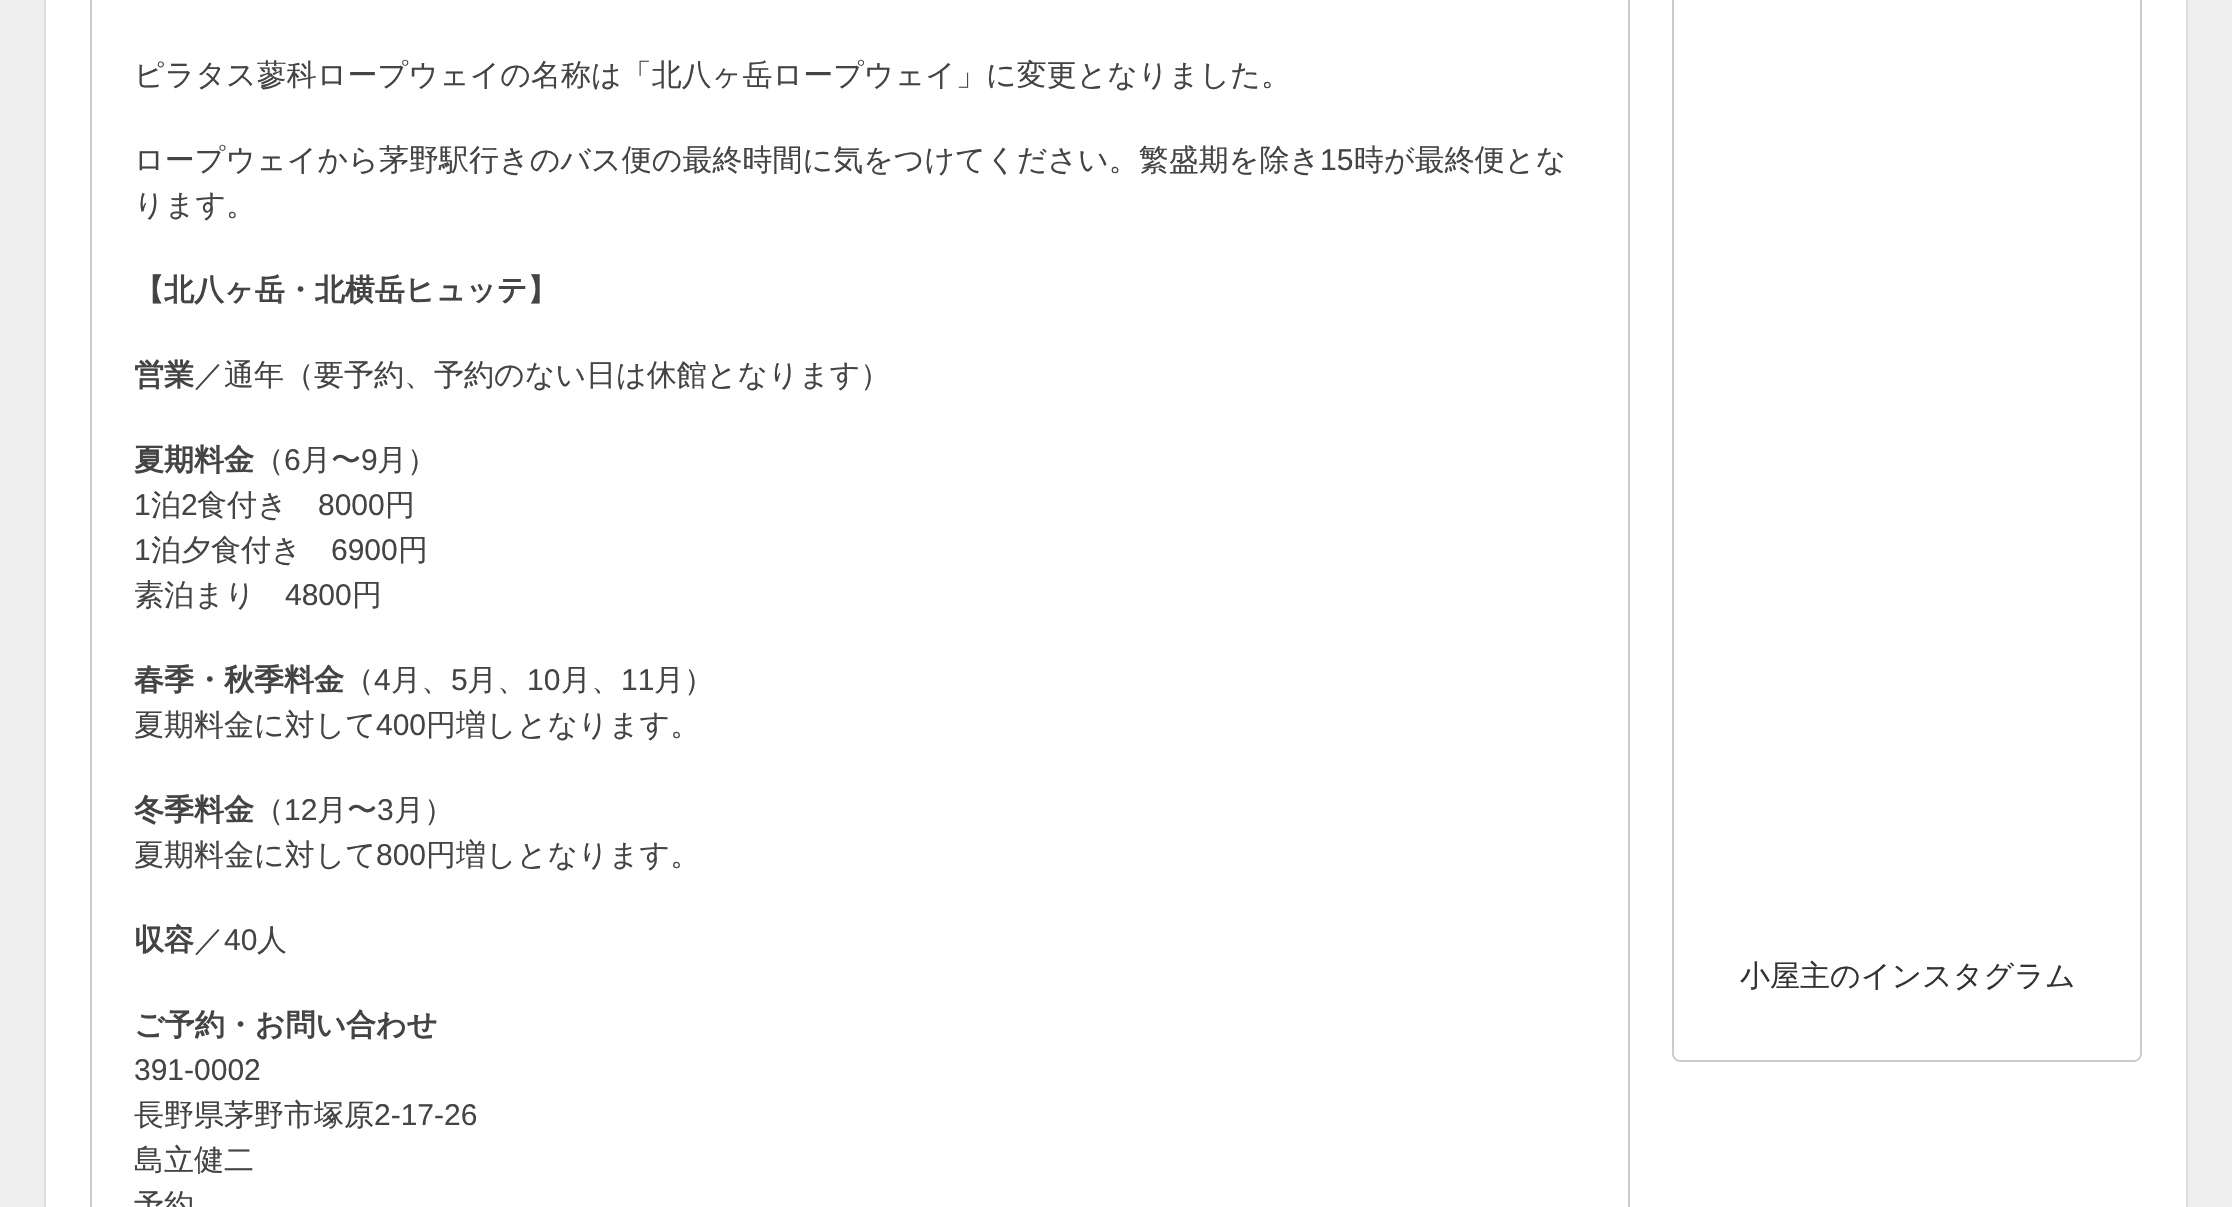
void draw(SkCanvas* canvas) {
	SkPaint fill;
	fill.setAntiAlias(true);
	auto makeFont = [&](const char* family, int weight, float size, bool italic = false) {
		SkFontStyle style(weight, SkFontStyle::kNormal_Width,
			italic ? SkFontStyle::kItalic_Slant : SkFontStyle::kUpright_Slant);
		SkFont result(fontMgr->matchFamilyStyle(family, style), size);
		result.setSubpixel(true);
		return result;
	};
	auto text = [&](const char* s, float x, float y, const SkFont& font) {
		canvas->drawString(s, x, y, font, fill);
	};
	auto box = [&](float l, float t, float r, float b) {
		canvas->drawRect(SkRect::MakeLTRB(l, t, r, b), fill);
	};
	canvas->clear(0xFFEEEEEE);
	fill.setColor(0xFFFFFFFF);
	box(46, 0, 2186, 1207);
	fill.setColor(0xFFDDDDDD);
	box(2186, 0, 2188, 1207);
	box(44, 0, 46, 1207);
	fill.setStyle(SkPaint::kStroke_Style);
	fill.setStrokeWidth(2);
	fill.setColor(0xFFCCCCCC);
	canvas->drawRect(SkRect::MakeLTRB(91, -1, 1629, 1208), fill);
	fill.setStyle(SkPaint::kFill_Style);
	canvas->drawPath(SkPathBuilder(SkPathFillType::kEvenOdd).moveTo(1672, -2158).lineTo(2142, -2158).lineTo(2142, 1054).cubicTo(2142, 1058, 2138, 1062, 2134, 1062).lineTo(1680, 1062).cubicTo(1676, 1062, 1672, 1058, 1672, 1054).close().moveTo(1674, -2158).lineTo(2140, -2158).lineTo(2140, 1054).cubicTo(2140, 1057, 2137, 1060, 2134, 1060).lineTo(1680, 1060).cubicTo(1677, 1060, 1674, 1057, 1674, 1054).close().detach(), fill);
	auto font1 = makeFont("WenQuanYi Zen Hei", 500, 30);
	fill.setColor(0xFF444444);
	text("ピラタス蓼科ロープウェイの名称は「北八ヶ岳ロープウェイ」に変更となりました。", 134, 85, font1);
	text("ロープウェイから茅野駅行きのバス便の最終時間に気をつけてください。繁盛期を除き", 134, 170, font1);
	auto font2 = makeFont("Liberation Sans", 400, 30);
	text("15", 1320, 170, font2);
	text("時が最終便とな", 1354, 170, font1);
	text("ります。", 134, 215, font1);
	auto font3 = makeFont("WenQuanYi Zen Hei", 700, 30);
	text("【北八ヶ岳・北横岳ヒュッテ】", 134, 300, font3);
	text("営業", 134, 385, font3);
	text("／通年（要予約、予約のない日は休館となります）", 194, 385, font1);
	text("夏期料金", 134, 470, font3);
	text("（", 254, 470, font1);
	text("6", 284, 470, font2);
	text("月〜", 301, 470, font1);
	text("9", 361, 470, font2);
	text("月）", 377, 470, font1);
	text("1", 134, 515, font2);
	text("泊", 151, 515, font1);
	text("2", 181, 515, font2);
	text("食付き", 197, 515, font1);
	text("8000", 318, 515, font2);
	text("円", 385, 515, font1);
	text("1", 134, 560, font2);
	text("泊夕食付き", 151, 560, font1);
	text("6900", 331, 560, font2);
	text("円", 398, 560, font1);
	text("素泊まり", 134, 605, font1);
	text("4800", 285, 605, font2);
	text("円", 352, 605, font1);
	text("春季・秋季料金", 134, 690, font3);
	text("（", 344, 690, font1);
	text("4", 374, 690, font2);
	text("月、", 391, 690, font1);
	text("5", 451, 690, font2);
	text("月、", 467, 690, font1);
	text("10", 527, 690, font2);
	text("月、", 561, 690, font1);
	text("11", 621, 690, font2);
	text("月）", 654, 690, font1);
	text("夏期料金に対して", 134, 735, font1);
	text("400", 376, 735, font2);
	text("円増しとなります。", 426, 735, font1);
	text("冬季料金", 134, 820, font3);
	text("（", 254, 820, font1);
	text("12", 284, 820, font2);
	text("月〜", 317, 820, font1);
	text("3", 377, 820, font2);
	text("月）", 394, 820, font1);
	text("夏期料金に対して", 134, 865, font1);
	text("800", 376, 865, font2);
	text("円増しとなります。", 426, 865, font1);
	text("収容", 134, 950, font3);
	text("／", 194, 950, font1);
	text("40", 224, 950, font2);
	text("人", 257, 950, font1);
	text("ご予約・お問い合わせ", 134, 1035, font3);
	text("391-0002", 134, 1080, font2);
	text("長野県茅野市塚原", 134, 1125, font1);
	text("2-17-26", 374, 1125, font2);
	text("島立健二", 134, 1170, font1);
	text("予約", 134, 1215, font1);
	fill.setColor(0xFF333333);
	text("小屋主のインスタグラム", 1740, 986, font1);
}
